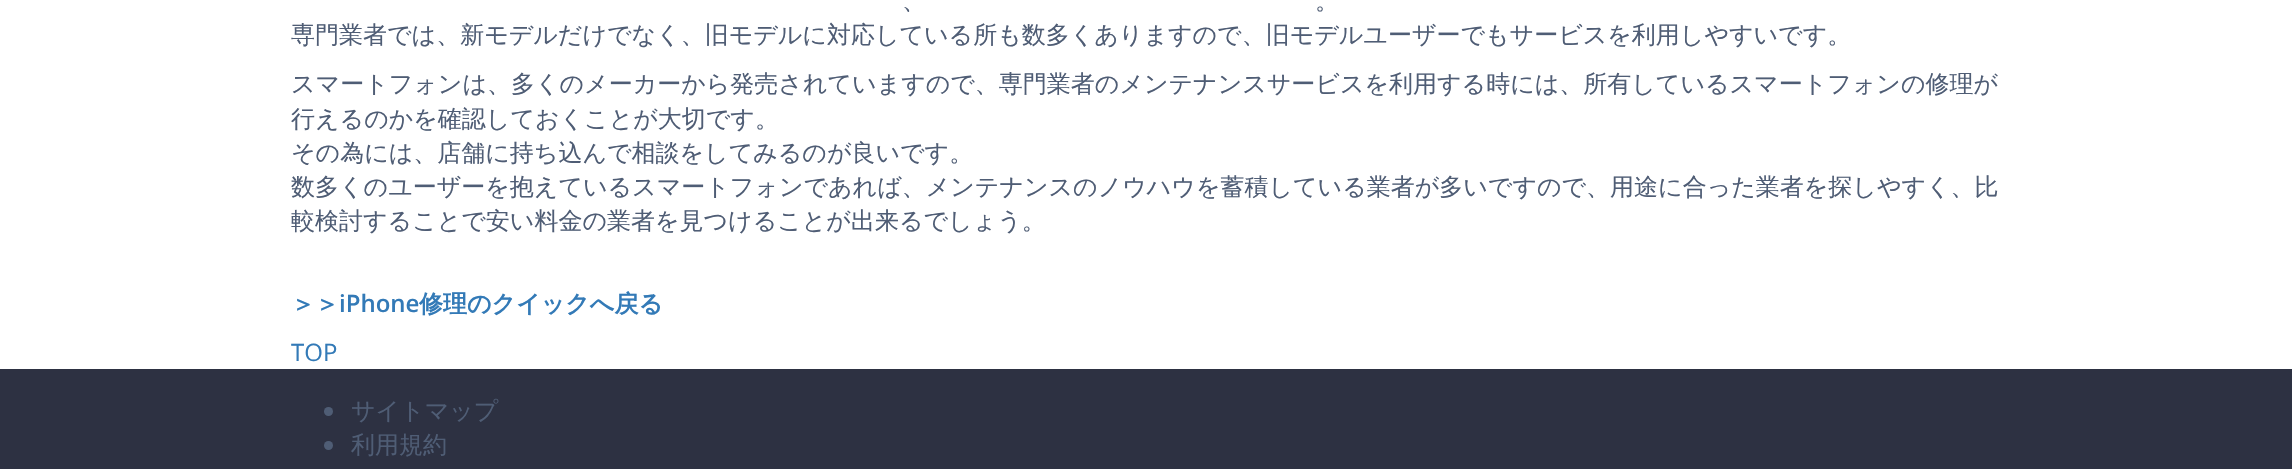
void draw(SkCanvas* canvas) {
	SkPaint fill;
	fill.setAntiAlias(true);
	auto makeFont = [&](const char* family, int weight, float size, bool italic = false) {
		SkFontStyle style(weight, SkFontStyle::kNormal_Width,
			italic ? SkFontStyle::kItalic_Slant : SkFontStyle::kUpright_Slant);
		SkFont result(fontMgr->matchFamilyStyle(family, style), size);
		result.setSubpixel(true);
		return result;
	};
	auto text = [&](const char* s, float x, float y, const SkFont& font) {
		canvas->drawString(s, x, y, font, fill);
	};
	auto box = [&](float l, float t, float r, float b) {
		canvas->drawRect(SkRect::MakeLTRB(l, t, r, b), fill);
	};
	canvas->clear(0xFFFFFFFF);
	fill.setColor(0xFF2D3142);
	box(0, 369, 2292, 469);
	fill.setColor(0xFF4F5D75);
	canvas->drawCircle(328.5f, 411.5f, 4.5f, fill);
	canvas->drawCircle(328.5f, 445.5f, 4.5f, fill);
	auto font1 = makeFont("WenQuanYi Zen Hei", 500, 24);
	text("、", 902, 9, font1);
	text("。", 1315, 9, font1);
	text("専門業者では、新モデルだけでなく、旧モデルに対応している所も数多くありますので、旧モデルユーザーでもサービスを利用しやすいです。", 291, 43, font1);
	text("スマートフォンは、多くのメーカーから発売されていますので、専門業者のメンテナンスサービスを利用する時には、所有しているスマートフォンの修理が", 291, 92, font1);
	text("行えるのかを確認しておくことが大切です。", 291, 127, font1);
	text("その為には、店舗に持ち込んで相談をしてみるのが良いです。", 291, 161, font1);
	text("数多くのユーザーを抱えているスマートフォンであれば、メンテナンスのノウハウを蓄積している業者が多いですので、用途に合った業者を探しやすく、比", 291, 195, font1);
	text("較検討することで安い料金の業者を見つけることが出来るでしょう。", 291, 229, font1);
	auto font2 = makeFont("WenQuanYi Zen Hei", 700, 24);
	fill.setColor(0xFF337AB7);
	text("＞＞", 291, 312, font2);
	auto font3 = makeFont("Open Sans", 600, 24);
	text("iPhone", 339, 312, font3);
	text("修理のクイックへ戻る", 419, 312, font2);
	auto font4 = makeFont("Open Sans", 400, 24);
	text("TOP", 291, 361, font4);
	fill.setColor(0xFF4F5D75);
	text("サイトマップ", 351, 419, font1);
	text("利用規約", 351, 453, font1);
}
